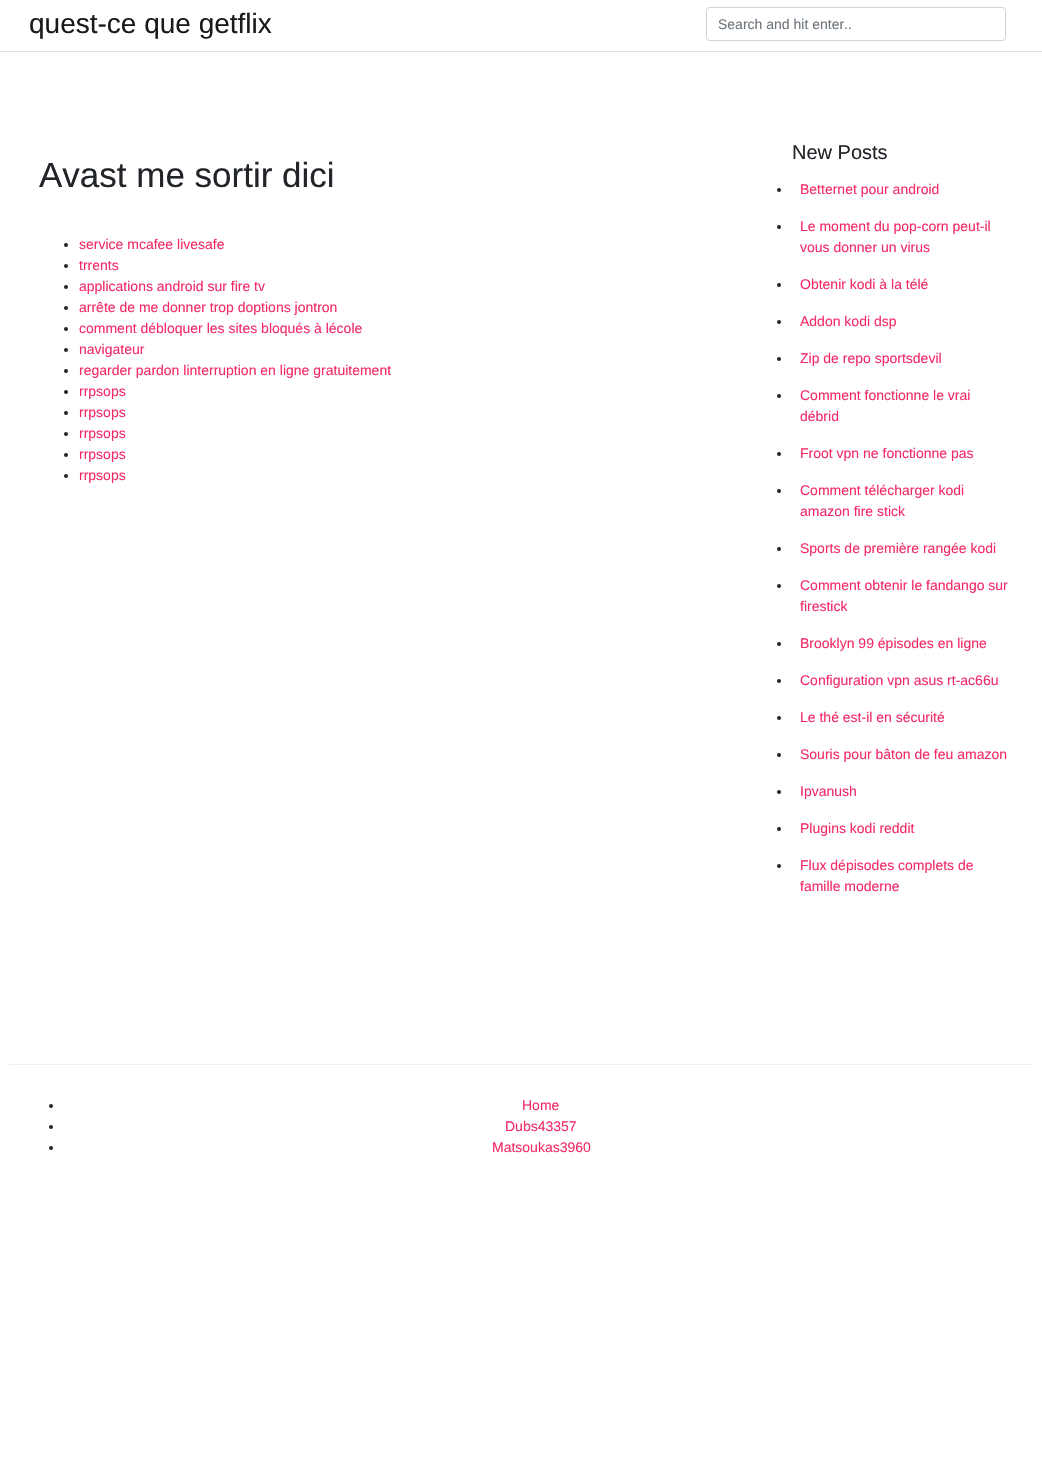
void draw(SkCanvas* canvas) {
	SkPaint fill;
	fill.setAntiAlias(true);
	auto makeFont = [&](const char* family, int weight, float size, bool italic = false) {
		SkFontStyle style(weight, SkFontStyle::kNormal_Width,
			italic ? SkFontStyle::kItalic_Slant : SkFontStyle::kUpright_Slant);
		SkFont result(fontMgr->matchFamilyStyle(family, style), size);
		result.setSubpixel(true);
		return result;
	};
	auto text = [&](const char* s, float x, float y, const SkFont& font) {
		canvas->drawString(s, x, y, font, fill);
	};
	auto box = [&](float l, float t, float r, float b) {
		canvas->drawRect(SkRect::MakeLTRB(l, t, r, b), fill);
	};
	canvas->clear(0xFFFFFFFF);
	fill.setColor(0xFFE1E2E3);
	box(0, 51, 1042, 52);
	fill.setStyle(SkPaint::kStroke_Style);
	fill.setStrokeWidth(1);
	fill.setColor(0xFFCED4DA);
	canvas->drawRoundRect(SkRect::MakeLTRB(706.5f, 7.5f, 1005.5f, 40.5f), 3.5f, 3.5f, fill);
	fill.setStyle(SkPaint::kFill_Style);
	fill.setColor(0xFF212529);
	canvas->drawCircle(66, 245, 2, fill);
	canvas->drawCircle(66, 266, 2, fill);
	canvas->drawCircle(66, 287, 2, fill);
	canvas->drawCircle(66, 308, 2, fill);
	canvas->drawCircle(66, 329, 2, fill);
	canvas->drawCircle(66, 350, 2, fill);
	canvas->drawCircle(66, 371, 2, fill);
	canvas->drawCircle(66, 392, 2, fill);
	canvas->drawCircle(66, 413, 2, fill);
	canvas->drawCircle(66, 434, 2, fill);
	canvas->drawCircle(66, 455, 2, fill);
	canvas->drawCircle(66, 476, 2, fill);
	canvas->drawCircle(779, 190, 2, fill);
	canvas->drawCircle(779, 227, 2, fill);
	canvas->drawCircle(779, 285, 2, fill);
	canvas->drawCircle(779, 322, 2, fill);
	canvas->drawCircle(779, 359, 2, fill);
	canvas->drawCircle(779, 396, 2, fill);
	canvas->drawCircle(779, 454, 2, fill);
	canvas->drawCircle(779, 491, 2, fill);
	canvas->drawCircle(779, 549, 2, fill);
	canvas->drawCircle(779, 586, 2, fill);
	canvas->drawCircle(779, 644, 2, fill);
	canvas->drawCircle(779, 681, 2, fill);
	canvas->drawCircle(779, 718, 2, fill);
	canvas->drawCircle(779, 755, 2, fill);
	canvas->drawCircle(779, 792, 2, fill);
	canvas->drawCircle(779, 829, 2, fill);
	canvas->drawCircle(779, 866, 2, fill);
	fill.setColor(0xFFEEEEEE);
	box(9, 1064, 1033, 1065);
	fill.setColor(0xFF212529);
	canvas->drawCircle(51, 1106, 2, fill);
	canvas->drawCircle(51, 1127, 2, fill);
	canvas->drawCircle(51, 1148, 2, fill);
	auto font1 = makeFont("Liberation Sans", 400, 28);
	fill.setColor(0xFF1A1A1A);
	text("quest-ce que getflix", 29, 33, font1);
	auto font2 = makeFont("Liberation Sans", 400, 14);
	fill.setColor(0xFF6C757D);
	text("Search and hit enter..", 718, 29, font2);
	auto font3 = makeFont("Liberation Sans", 400, 35);
	fill.setColor(0xFF212529);
	text("Avast me sortir dici", 39, 187, font3);
	fill.setColor(0xFFF42966);
	text("service mcafee livesafe", 79, 249, font2);
	text("trrents", 79, 270, font2);
	text("applications android sur fire tv", 79, 291, font2);
	text("arrête de me donner trop doptions jontron", 79, 312, font2);
	text("comment débloquer les sites bloqués à lécole", 79, 333, font2);
	text("navigateur", 79, 354, font2);
	text("regarder pardon linterruption en ligne gratuitement", 79, 375, font2);
	text("rrpsops", 79, 396, font2);
	text("rrpsops", 79, 417, font2);
	text("rrpsops", 79, 438, font2);
	text("rrpsops", 79, 459, font2);
	text("rrpsops", 79, 480, font2);
	auto font4 = makeFont("Liberation Sans", 400, 20);
	fill.setColor(0xFF212529);
	text("New Posts", 792, 159, font4);
	fill.setColor(0xFFF42966);
	text("Betternet pour android", 800, 194, font2);
	text("Le moment du pop-corn peut-il", 800, 231, font2);
	text("vous donner un virus", 800, 252, font2);
	text("Obtenir kodi à la télé", 800, 289, font2);
	text("Addon kodi dsp", 800, 326, font2);
	text("Zip de repo sportsdevil", 800, 363, font2);
	text("Comment fonctionne le vrai", 800, 400, font2);
	text("débrid", 800, 421, font2);
	text("Froot vpn ne fonctionne pas", 800, 458, font2);
	text("Comment télécharger kodi", 800, 495, font2);
	text("amazon fire stick", 800, 516, font2);
	text("Sports de première rangée kodi", 800, 553, font2);
	text("Comment obtenir le fandango sur", 800, 590, font2);
	text("firestick", 800, 611, font2);
	text("Brooklyn 99 épisodes en ligne", 800, 648, font2);
	text("Configuration vpn asus rt-ac66u", 800, 685, font2);
	text("Le thé est-il en sécurité", 800, 722, font2);
	text("Souris pour bâton de feu amazon", 800, 759, font2);
	text("Ipvanush", 800, 796, font2);
	text("Plugins kodi reddit", 800, 833, font2);
	text("Flux dépisodes complets de", 800, 870, font2);
	text("famille moderne", 800, 891, font2);
	text("Home", 522, 1110, font2);
	text("Dubs43357", 505, 1131, font2);
	text("Matsoukas3960", 492, 1152, font2);
}
